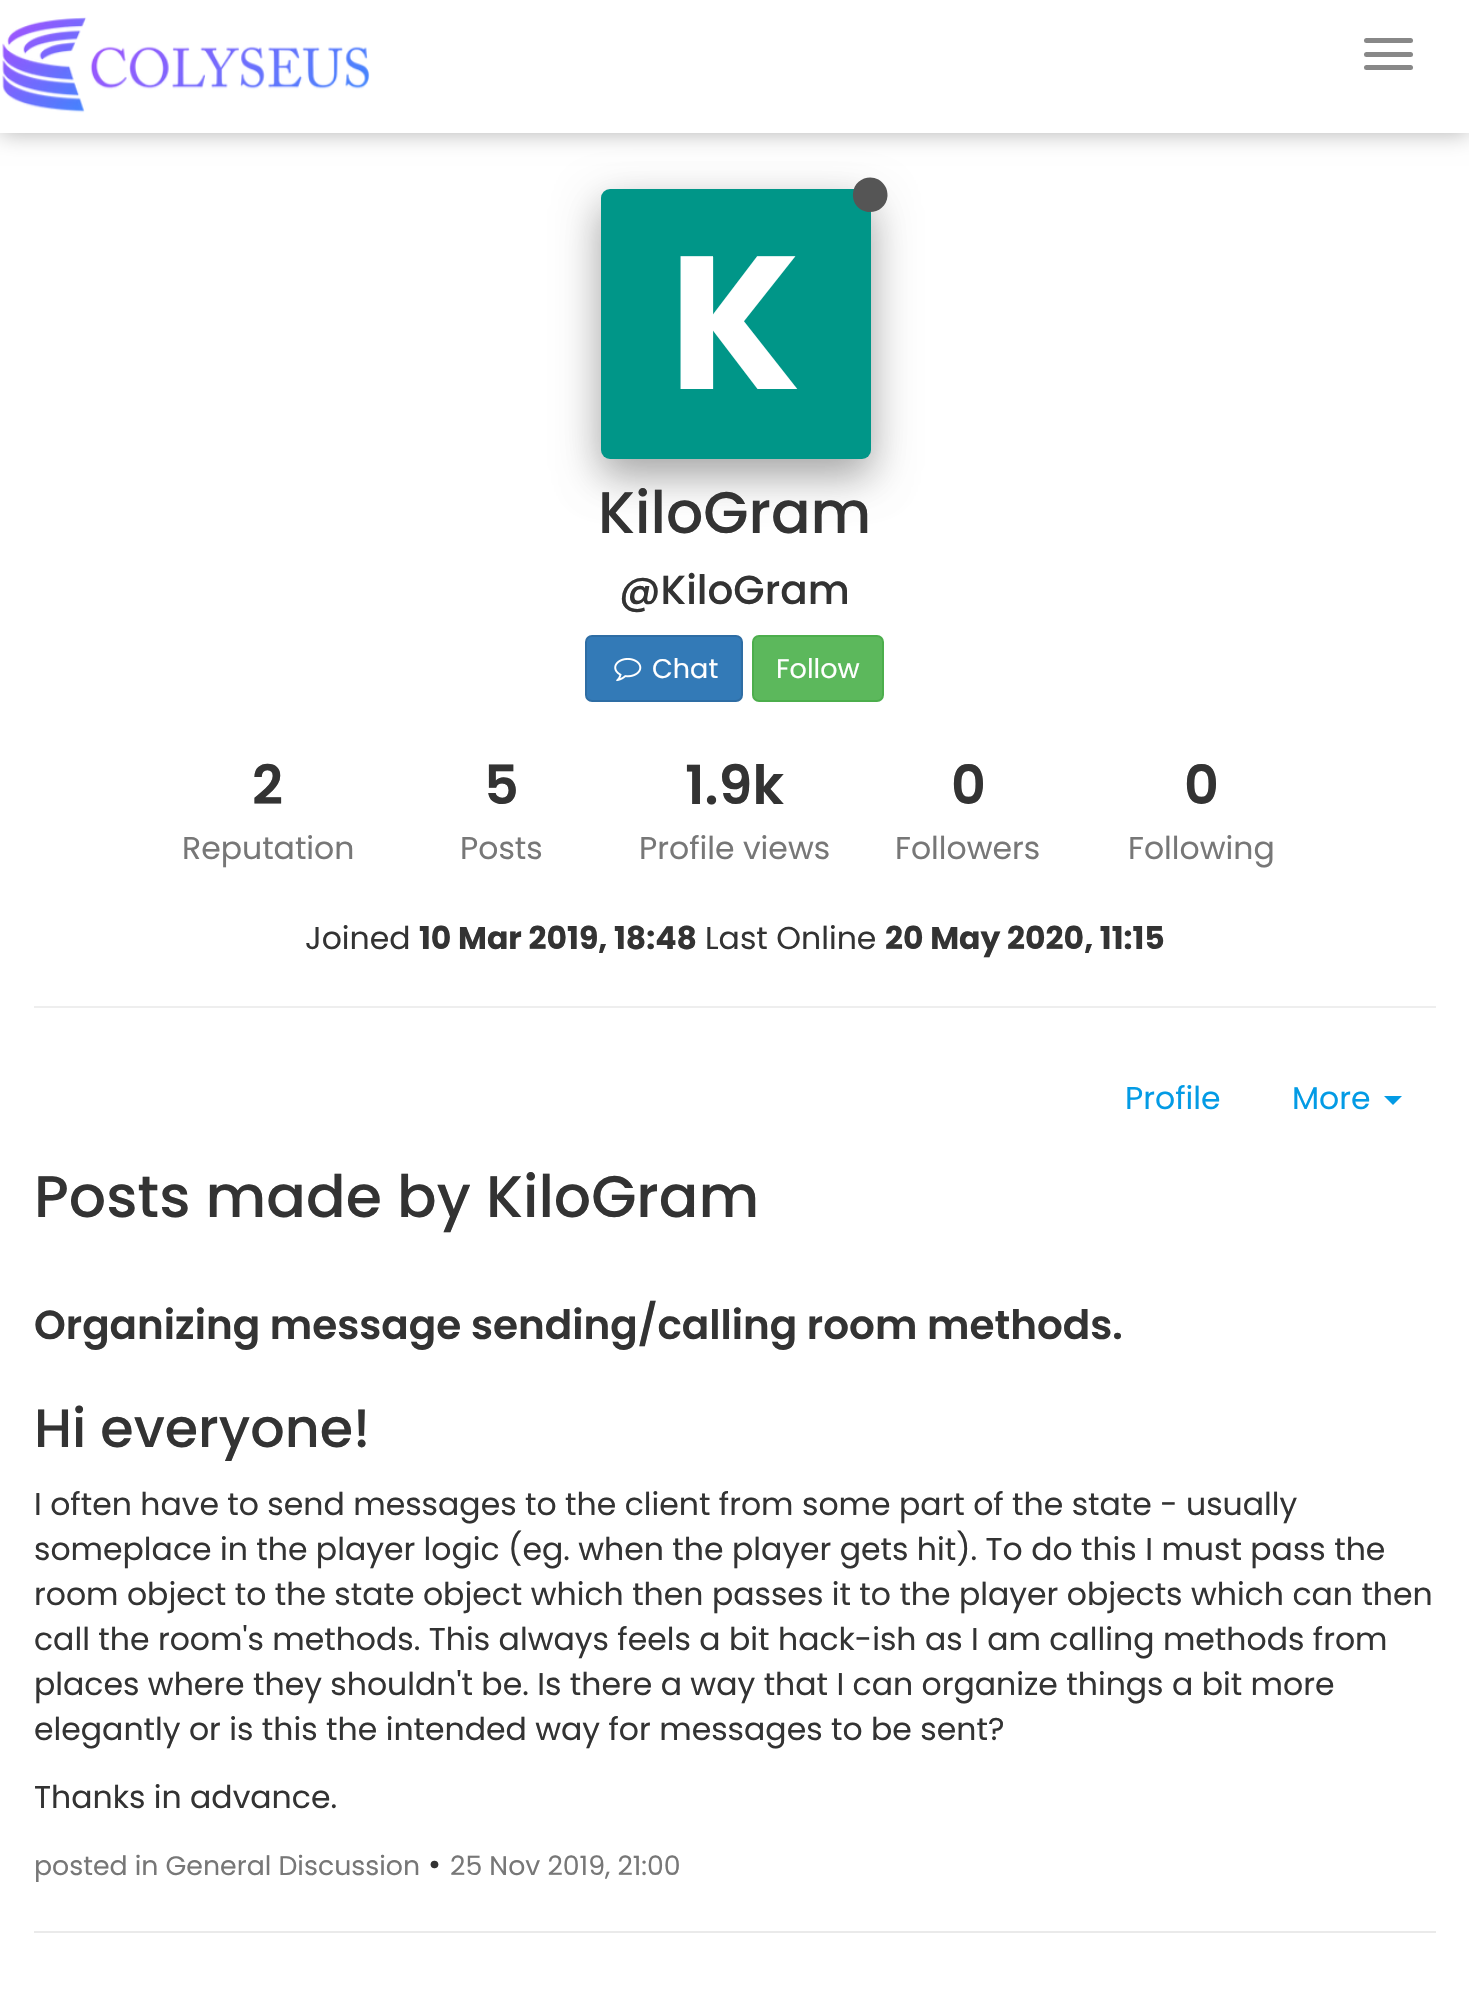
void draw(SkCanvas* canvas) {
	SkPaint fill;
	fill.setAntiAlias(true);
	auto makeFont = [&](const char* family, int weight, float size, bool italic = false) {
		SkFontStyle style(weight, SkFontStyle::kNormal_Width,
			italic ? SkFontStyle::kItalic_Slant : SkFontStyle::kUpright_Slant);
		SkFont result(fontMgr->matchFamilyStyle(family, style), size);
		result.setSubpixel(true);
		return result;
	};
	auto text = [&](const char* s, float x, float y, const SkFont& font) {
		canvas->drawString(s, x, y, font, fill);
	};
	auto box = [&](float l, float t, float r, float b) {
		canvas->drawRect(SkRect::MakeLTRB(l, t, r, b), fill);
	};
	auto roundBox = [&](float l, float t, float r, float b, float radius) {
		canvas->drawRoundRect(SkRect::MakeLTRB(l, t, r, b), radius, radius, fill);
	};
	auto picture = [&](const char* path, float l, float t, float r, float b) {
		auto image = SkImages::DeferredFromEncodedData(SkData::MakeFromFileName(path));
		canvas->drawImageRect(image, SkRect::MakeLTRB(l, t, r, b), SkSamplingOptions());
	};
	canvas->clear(0xFFFFFFFF);
	fill.setColor(0x4D000000);
	fill.setMaskFilter(SkMaskFilter::MakeBlur(kNormal_SkBlurStyle, 11));
	canvas->drawRect(SkRect::MakeLTRB(0, 0, 1469, 133), fill);
	fill.setMaskFilter(nullptr);
	fill.setColor(0xFFFFFFFF);
	box(0, 0, 1469, 133);
	picture("image0.png", 2, 17, 370, 113);
	fill.setColor(0xFF888888);
	roundBox(1364, 38, 1413, 43, 2.5f);
	roundBox(1364, 52, 1413, 57, 2.5f);
	roundBox(1364, 65, 1413, 70, 2.5f);
	fill.setColor(0x30000000);
	fill.setMaskFilter(SkMaskFilter::MakeBlur(kNormal_SkBlurStyle, 22.5f));
	canvas->drawRoundRect(SkRect::MakeLTRB(601, 203, 871, 473), 9, 9, fill);
	fill.setMaskFilter(nullptr);
	fill.setColor(0x33000000);
	fill.setMaskFilter(SkMaskFilter::MakeBlur(kNormal_SkBlurStyle, 19));
	canvas->drawRoundRect(SkRect::MakeLTRB(601, 207, 871, 477), 9, 9, fill);
	fill.setMaskFilter(nullptr);
	fill.setColor(0xFF009688);
	roundBox(601, 189, 871, 459, 9);
	fill.setColor(0xFF555555);
	canvas->drawPath(SkPathBuilder().moveTo(885, 186).cubicTo(887, 189, 887.5f, 192.5f, 887.5f, 196).cubicTo(886.5f, 213, 863.5f, 218, 855, 203.5f).cubicTo(853.5f, 200.5f, 852.5f, 197, 853, 193.5f).cubicTo(854, 176.5f, 876.5f, 171.5f, 885, 186).close().detach(), fill);
	fill.setColor(0xFF337AB7);
	canvas->drawRoundRect(SkRect::MakeLTRB(586, 636, 742, 701), 6, 6, fill);
	fill.setStyle(SkPaint::kStroke_Style);
	fill.setStrokeWidth(2);
	fill.setColor(0xFF2E6DA4);
	canvas->drawRoundRect(SkRect::MakeLTRB(586, 636, 742, 701), 6, 6, fill);
	picture("image1.png", 614, 658, 642, 682);
	fill.setStyle(SkPaint::kFill_Style);
	fill.setColor(0xFF5CB85C);
	canvas->drawRoundRect(SkRect::MakeLTRB(753, 636, 883, 701), 6, 6, fill);
	fill.setStyle(SkPaint::kStroke_Style);
	fill.setColor(0xFF4CAE4C);
	canvas->drawRoundRect(SkRect::MakeLTRB(753, 636, 883, 701), 6, 6, fill);
	fill.setStyle(SkPaint::kFill_Style);
	fill.setColor(0xFFEEEEEE);
	box(34, 1006, 1436, 1008);
	fill.setColor(0xFF039BE5);
	canvas->drawPath(SkPathBuilder().moveTo(1384, 1096).lineTo(1402, 1096).lineTo(1393, 1105).close().detach(), fill);
	fill.setColor(0xFFEAEAEA);
	box(34, 1931, 1436, 1933);
	auto font1 = makeFont("Poppins", 700, 189);
	fill.setColor(0xFFFFFFFF);
	text("K", 669, 389, font1);
	auto font2 = makeFont("Poppins", 500, 58.5f);
	fill.setColor(0xFF333333);
	text("KiloGram", 598, 533, font2);
	auto font3 = makeFont("Poppins", 500, 40.5f);
	text("@KiloGram", 619, 604, font3);
	auto font4 = makeFont("Poppins", 400, 27);
	fill.setColor(0xFFFFFFFF);
	text("Chat", 652, 678, font4);
	text("Follow", 776, 678, font4);
	auto font5 = makeFont("Poppins", 600, 54);
	fill.setColor(0xFF333333);
	text("2", 252, 804, font5);
	auto font6 = makeFont("Poppins", 400, 31.5f);
	fill.setColor(0xFF777777);
	text("Reputation", 182, 859, font6);
	fill.setColor(0xFF333333);
	text("5", 484, 804, font5);
	fill.setColor(0xFF777777);
	text("Posts", 460, 859, font6);
	fill.setColor(0xFF333333);
	text("1.9k", 685, 804, font5);
	fill.setColor(0xFF777777);
	text("Profile views", 639, 859, font6);
	fill.setColor(0xFF333333);
	text("0", 951, 804, font5);
	fill.setColor(0xFF777777);
	text("Followers", 895, 859, font6);
	fill.setColor(0xFF333333);
	text("0", 1184, 804, font5);
	fill.setColor(0xFF777777);
	text("Following", 1128, 859, font6);
	fill.setColor(0xFF333333);
	text("Joined", 305, 949, font6);
	auto font7 = makeFont("Poppins", 700, 31.5f);
	text("10 Mar 2019, 18:48", 419, 949, font7);
	text("Last Online", 705, 949, font6);
	text("20 May 2020, 11:15", 885, 949, font7);
	fill.setColor(0xFF039BE5);
	text("Profile", 1125, 1109, font6);
	text("More", 1292, 1109, font6);
	fill.setColor(0xFF333333);
	text("Posts made by KiloGram", 34, 1217, font2);
	auto font8 = makeFont("Poppins", 600, 40.5f);
	text("Organizing message sending/calling room methods.", 34, 1339, font8);
	auto font9 = makeFont("Poppins", 500, 54);
	text("Hi everyone!", 34, 1447, font9);
	text("I often have to send messages to the client from some part of the state - usually", 34, 1515, font6);
	text("someplace in the player logic (eg. when the player gets hit). To do this I must pass the", 34, 1560, font6);
	text("room object to the state object which then passes it to the player objects which can then", 34, 1605, font6);
	text("call the room's methods. This always feels a bit hack-ish as I am calling methods from", 34, 1650, font6);
	text("places where they shouldn't be. Is there a way that I can organize things a bit more", 34, 1695, font6);
	text("elegantly or is this the intended way for messages to be sent?", 34, 1740, font6);
	text("Thanks in advance.", 34, 1808, font6);
	auto font10 = makeFont("Poppins", 400, 26.75f);
	fill.setColor(0xFF777777);
	text("posted in General Discussion", 34, 1875, font10);
	fill.setColor(0xFF333333);
	text("•", 428, 1875, font6);
	fill.setColor(0xFF777777);
	text("25 Nov 2019, 21:00", 450, 1875, font10);
}
